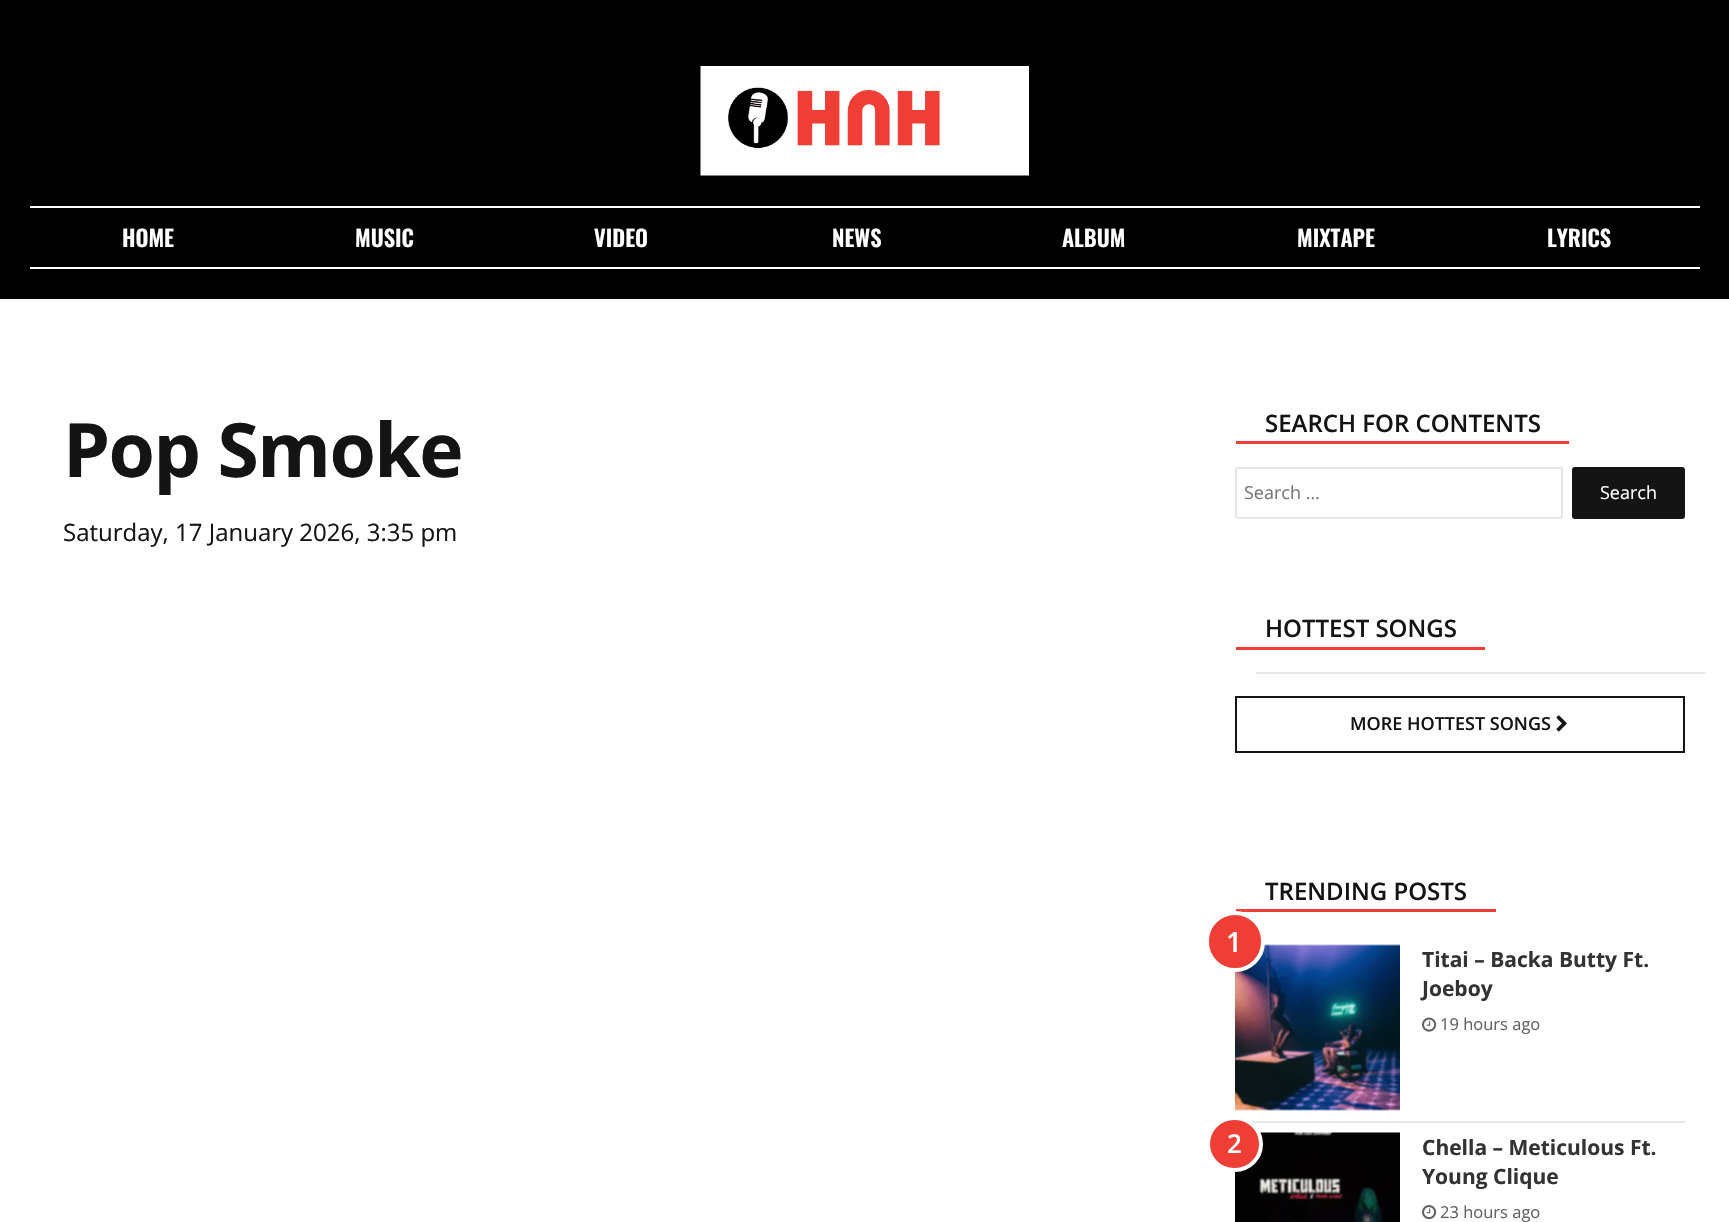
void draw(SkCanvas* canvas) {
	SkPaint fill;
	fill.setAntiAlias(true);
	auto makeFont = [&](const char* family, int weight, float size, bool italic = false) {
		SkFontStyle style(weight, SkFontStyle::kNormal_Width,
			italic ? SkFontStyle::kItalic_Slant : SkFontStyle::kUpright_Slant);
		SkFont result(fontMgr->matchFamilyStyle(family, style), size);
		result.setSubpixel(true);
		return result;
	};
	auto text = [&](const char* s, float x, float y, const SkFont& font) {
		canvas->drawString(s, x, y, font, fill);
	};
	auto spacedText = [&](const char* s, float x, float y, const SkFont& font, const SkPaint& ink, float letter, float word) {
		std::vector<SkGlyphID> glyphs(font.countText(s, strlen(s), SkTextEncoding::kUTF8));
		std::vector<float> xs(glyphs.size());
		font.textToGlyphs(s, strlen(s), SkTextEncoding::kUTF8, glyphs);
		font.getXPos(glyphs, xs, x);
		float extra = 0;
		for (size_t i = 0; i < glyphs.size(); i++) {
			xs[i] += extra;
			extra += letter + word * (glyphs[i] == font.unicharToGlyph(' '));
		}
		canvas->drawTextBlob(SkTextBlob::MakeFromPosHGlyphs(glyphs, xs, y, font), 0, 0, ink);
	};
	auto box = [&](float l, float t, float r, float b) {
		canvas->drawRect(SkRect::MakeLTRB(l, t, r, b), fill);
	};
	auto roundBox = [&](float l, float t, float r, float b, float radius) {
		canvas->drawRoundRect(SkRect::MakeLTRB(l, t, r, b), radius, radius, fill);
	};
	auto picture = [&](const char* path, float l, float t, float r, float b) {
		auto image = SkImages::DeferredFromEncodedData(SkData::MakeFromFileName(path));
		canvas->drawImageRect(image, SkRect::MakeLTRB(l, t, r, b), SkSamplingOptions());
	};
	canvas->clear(0xFFFFFFFF);
	fill.setColor(0xFF000000);
	box(0, 0, 1729, 299);
	picture("image0.png", 700, 66, 1029, 176);
	fill.setColor(0xFFFFFFFF);
	box(30, 206, 1700, 208);
	box(30, 267, 1700, 269);
	fill.setColor(0xFFEF3E36);
	box(1236, 441, 1569, 444);
	fill.setStyle(SkPaint::kStroke_Style);
	fill.setStrokeWidth(2);
	fill.setColor(0xFFE6E6E6);
	canvas->drawRoundRect(SkRect::MakeLTRB(1236, 468, 1562, 518), 2, 2, fill);
	fill.setStyle(SkPaint::kFill_Style);
	fill.setColor(0xFF141414);
	roundBox(1572, 467, 1685, 519, 3);
	fill.setColor(0xFFEF3E36);
	box(1236, 647, 1485, 650);
	fill.setColor(0xFFE7E7E7);
	roundBox(1256, 672, 1706, 674, 1);
	fill.setStyle(SkPaint::kStroke_Style);
	fill.setColor(0xFF141414);
	canvas->drawRect(SkRect::MakeLTRB(1236, 697, 1684, 752), fill);
	picture("image1.png", 1556, 715, 1567, 732);
	fill.setStyle(SkPaint::kFill_Style);
	fill.setColor(0xFFEF3E36);
	box(1236, 909, 1496, 912);
	fill.setColor(0xFFE4E6E8);
	box(1251, 1121, 1685, 1123);
	picture("image2.png", 1235, 944, 1400, 1111);
	fill.setColor(0xFFEF3E36);
	canvas->drawRoundRect(SkRect::MakeLTRB(1207, 913, 1263, 970), 28, 28, fill);
	fill.setStyle(SkPaint::kStroke_Style);
	fill.setStrokeWidth(4);
	fill.setColor(0xFFFFFFFF);
	canvas->drawRoundRect(SkRect::MakeLTRB(1207, 913, 1263, 970), 28, 28, fill);
	picture("image3.png", 1422, 1017, 1437, 1032);
	picture("image4.png", 1235, 1132, 1400, 1222);
	fill.setStyle(SkPaint::kFill_Style);
	fill.setColor(0xFFEF3E36);
	canvas->drawRoundRect(SkRect::MakeLTRB(1208, 1118, 1261, 1170), 26, 26, fill);
	fill.setStyle(SkPaint::kStroke_Style);
	fill.setColor(0xFFFFFFFF);
	canvas->drawRoundRect(SkRect::MakeLTRB(1208, 1118, 1261, 1170), 26, 26, fill);
	picture("image5.png", 1422, 1205, 1437, 1220);
	auto font1 = makeFont("Oswald", 600, 22.5f);
	fill.setStyle(SkPaint::kFill_Style);
	text("HOME", 122, 247, font1);
	text("MUSIC", 355, 247, font1);
	text("VIDEO", 594, 247, font1);
	text("NEWS", 832, 247, font1);
	text("ALBUM", 1062, 247, font1);
	text("MIXTAPE", 1297, 247, font1);
	text("LYRICS", 1547, 247, font1);
	auto font2 = makeFont("Open Sans", 700, 75);
	fill.setColor(0xFF141414);
	spacedText("Pop Smoke", 63, 477, font2, fill, -1.5f, 0);
	auto font3 = makeFont("Open Sans", 400, 24);
	text("Saturday, 17 January 2026, 3:35 pm", 63, 541, font3);
	auto font4 = makeFont("Open Sans", 600, 24);
	text("SEARCH FOR CONTENTS", 1265, 432, font4);
	auto font5 = makeFont("Open Sans", 400, 18);
	fill.setColor(0xFF757575);
	text("Search …", 1244, 499, font5);
	fill.setColor(0xFFFFFFFF);
	text("Search", 1600, 499, font5);
	fill.setColor(0xFF141414);
	text("HOTTEST SONGS", 1265, 637, font4);
	auto font6 = makeFont("Open Sans", 600, 18);
	text("MORE HOTTEST SONGS", 1350, 730, font6);
	text("TRENDING POSTS", 1265, 900, font4);
	auto font7 = makeFont("Open Sans", 600, 28);
	fill.setColor(0xFFFFFFFF);
	text("1", 1226, 952, font7);
	auto font8 = makeFont("Open Sans", 700, 21);
	fill.setColor(0xFF333333);
	text("Titai – Backa Butty Ft.", 1422, 967, font8);
	text("Joeboy", 1422, 996, font8);
	auto font9 = makeFont("Open Sans", 400, 16.5f);
	fill.setColor(0xFF626262);
	text("19 hours ago", 1440, 1030, font9);
	auto font10 = makeFont("Open Sans", 600, 26);
	fill.setColor(0xFFFFFFFF);
	text("2", 1227, 1153, font10);
	fill.setColor(0xFF333333);
	text("Chella – Meticulous Ft.", 1422, 1155, font8);
	text("Young Clique", 1422, 1184, font8);
	fill.setColor(0xFF626262);
	text("23 hours ago", 1440, 1218, font9);
}
